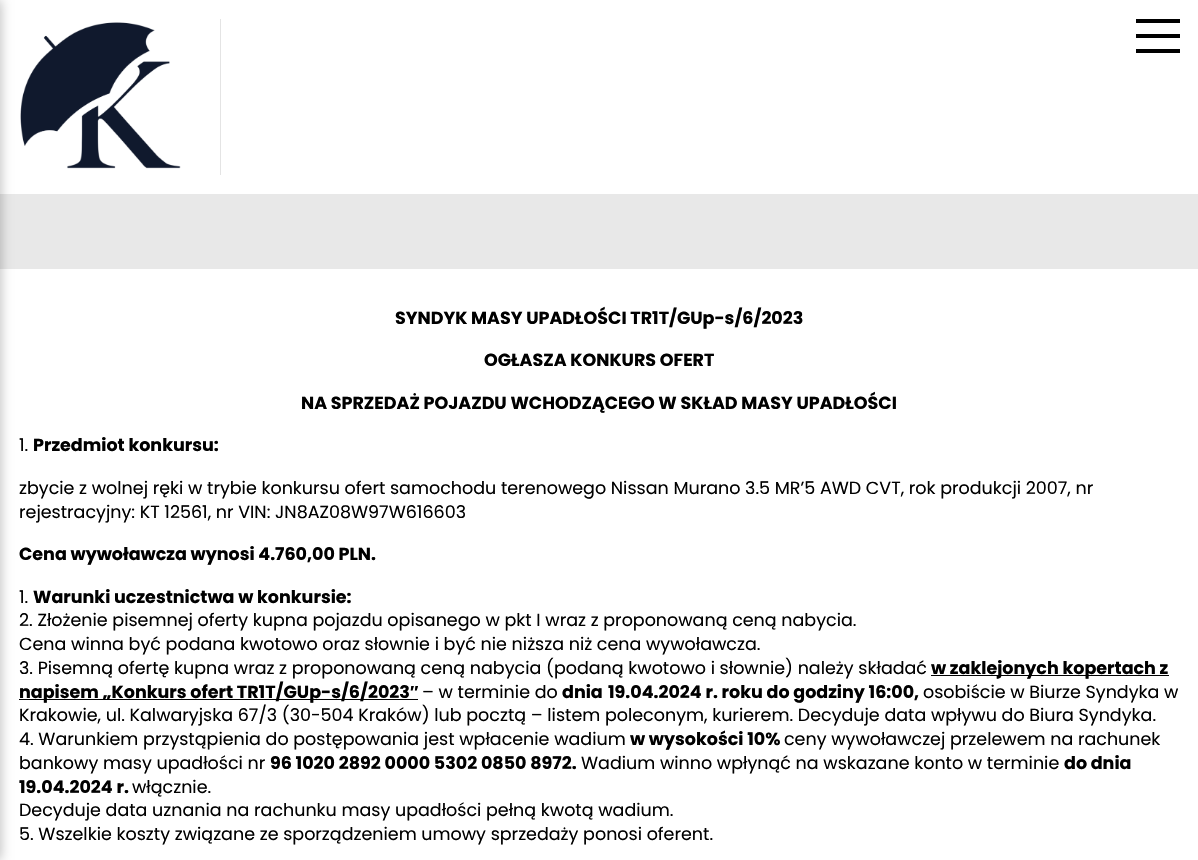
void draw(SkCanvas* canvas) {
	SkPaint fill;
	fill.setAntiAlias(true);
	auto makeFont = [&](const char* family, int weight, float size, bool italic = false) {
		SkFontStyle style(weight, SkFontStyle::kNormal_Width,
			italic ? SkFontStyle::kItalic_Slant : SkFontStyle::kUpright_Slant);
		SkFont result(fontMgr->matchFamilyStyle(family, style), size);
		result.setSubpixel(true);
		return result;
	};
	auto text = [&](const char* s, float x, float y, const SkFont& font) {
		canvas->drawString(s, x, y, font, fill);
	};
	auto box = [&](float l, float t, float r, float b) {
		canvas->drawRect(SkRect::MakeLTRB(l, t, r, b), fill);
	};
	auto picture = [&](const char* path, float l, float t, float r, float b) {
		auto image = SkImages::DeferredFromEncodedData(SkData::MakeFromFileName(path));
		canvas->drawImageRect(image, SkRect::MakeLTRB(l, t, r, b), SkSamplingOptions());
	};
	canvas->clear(0xFFFFFFFF);
	fill.setColor(0xFFE8E8E8);
	box(0, 194, 1198, 269);
	fill.setColor(0xFF000000);
	box(19, 699, 418, 700);
	fill.setColor(0x40000000);
	fill.setMaskFilter(SkMaskFilter::MakeBlur(kNormal_SkBlurStyle, 6));
	canvas->drawRect(SkRect::MakeLTRB(-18, 0, 1, 860), fill);
	fill.setMaskFilter(nullptr);
	fill.setColor(0xFFE4E4E4);
	box(220, 19, 221, 175);
	picture("image0.png", 20, 22, 181, 169);
	fill.setColor(0xFF000000);
	box(1136, 19, 1180, 23);
	box(1136, 34, 1180, 38);
	box(1136, 49, 1180, 53);
	box(931, 675, 1169, 676);
	auto font1 = makeFont("Poppins", 700, 17.5f);
	text("SYNDYK MASY UPADŁOŚCI TR1T/GUp-s/6/2023", 395, 324, font1);
	text("OGŁASZA KONKURS OFERT", 484, 366, font1);
	text("NA SPRZEDAŻ POJAZDU WCHODZĄCEGO W SKŁAD MASY UPADŁOŚCI", 301, 409, font1);
	auto font2 = makeFont("Poppins", 400, 17.5f);
	text("1.", 19, 451, font2);
	text("Przedmiot konkursu:", 33, 451, font1);
	text("zbycie z wolnej ręki w trybie konkursu ofert samochodu terenowego Nissan Murano 3.5 MR’5 AWD CVT, rok produkcji 2007, nr", 19, 494, font2);
	text("rejestracyjny: KT 12561, nr VIN: JN8AZ08W97W616603", 19, 518, font2);
	text("Cena wywoławcza wynosi 4.760,00 PLN.", 19, 560, font1);
	text("1.", 19, 603, font2);
	text("Warunki uczestnictwa w konkursie:", 33, 603, font1);
	text("2. Złożenie pisemnej oferty kupna pojazdu opisanego w pkt I wraz z proponowaną ceną nabycia.", 19, 626, font2);
	text("Cena winna być podana kwotowo oraz słownie i być nie niższa niż cena wywoławcza.", 19, 650, font2);
	text("3. Pisemną ofertę kupna wraz z proponowaną ceną nabycia (podaną kwotowo i słownie) należy składać", 19, 674, font2);
	text("w zaklejonych kopertach z", 931, 674, font1);
	text("napisem „Konkurs ofert TR1T/GUp-s/6/2023", 19, 698, font1);
	auto font3 = makeFont("Liberation Sans", 700, 17.5f);
	text("″", 410, 698, font3);
	text("– w terminie do", 422, 698, font2);
	text("dnia", 562, 698, font1);
	text("19.04.2024 r. roku do godziny 16:00,", 608, 698, font1);
	text("osobiście w Biurze Syndyka w", 923, 698, font2);
	text("Krakowie, ul. Kalwaryjska 67/3 (30-504 Kraków) lub pocztą – listem poleconym, kurierem. Decyduje data wpływu do Biura Syndyka.", 19, 721, font2);
	text("4. Warunkiem przystąpienia do postępowania jest wpłacenie wadium", 19, 745, font2);
	text("w wysokości 10%", 630, 745, font1);
	text("ceny wywoławczej przelewem na rachunek", 784, 745, font2);
	text("bankowy masy upadłości nr", 19, 769, font2);
	text("96 1020 2892 0000 5302 0850 8972.", 270, 769, font1);
	text("Wadium winno wpłynąć na wskazane konto w terminie", 581, 769, font2);
	text("do dnia", 1064, 769, font1);
	text("19.04.2024 r.", 19, 793, font1);
	text("włącznie.", 132, 793, font2);
	text("Decyduje data uznania na rachunku masy upadłości pełną kwotą wadium.", 19, 816, font2);
	text("5. Wszelkie koszty związane ze sporządzeniem umowy sprzedaży ponosi oferent.", 19, 840, font2);
}
